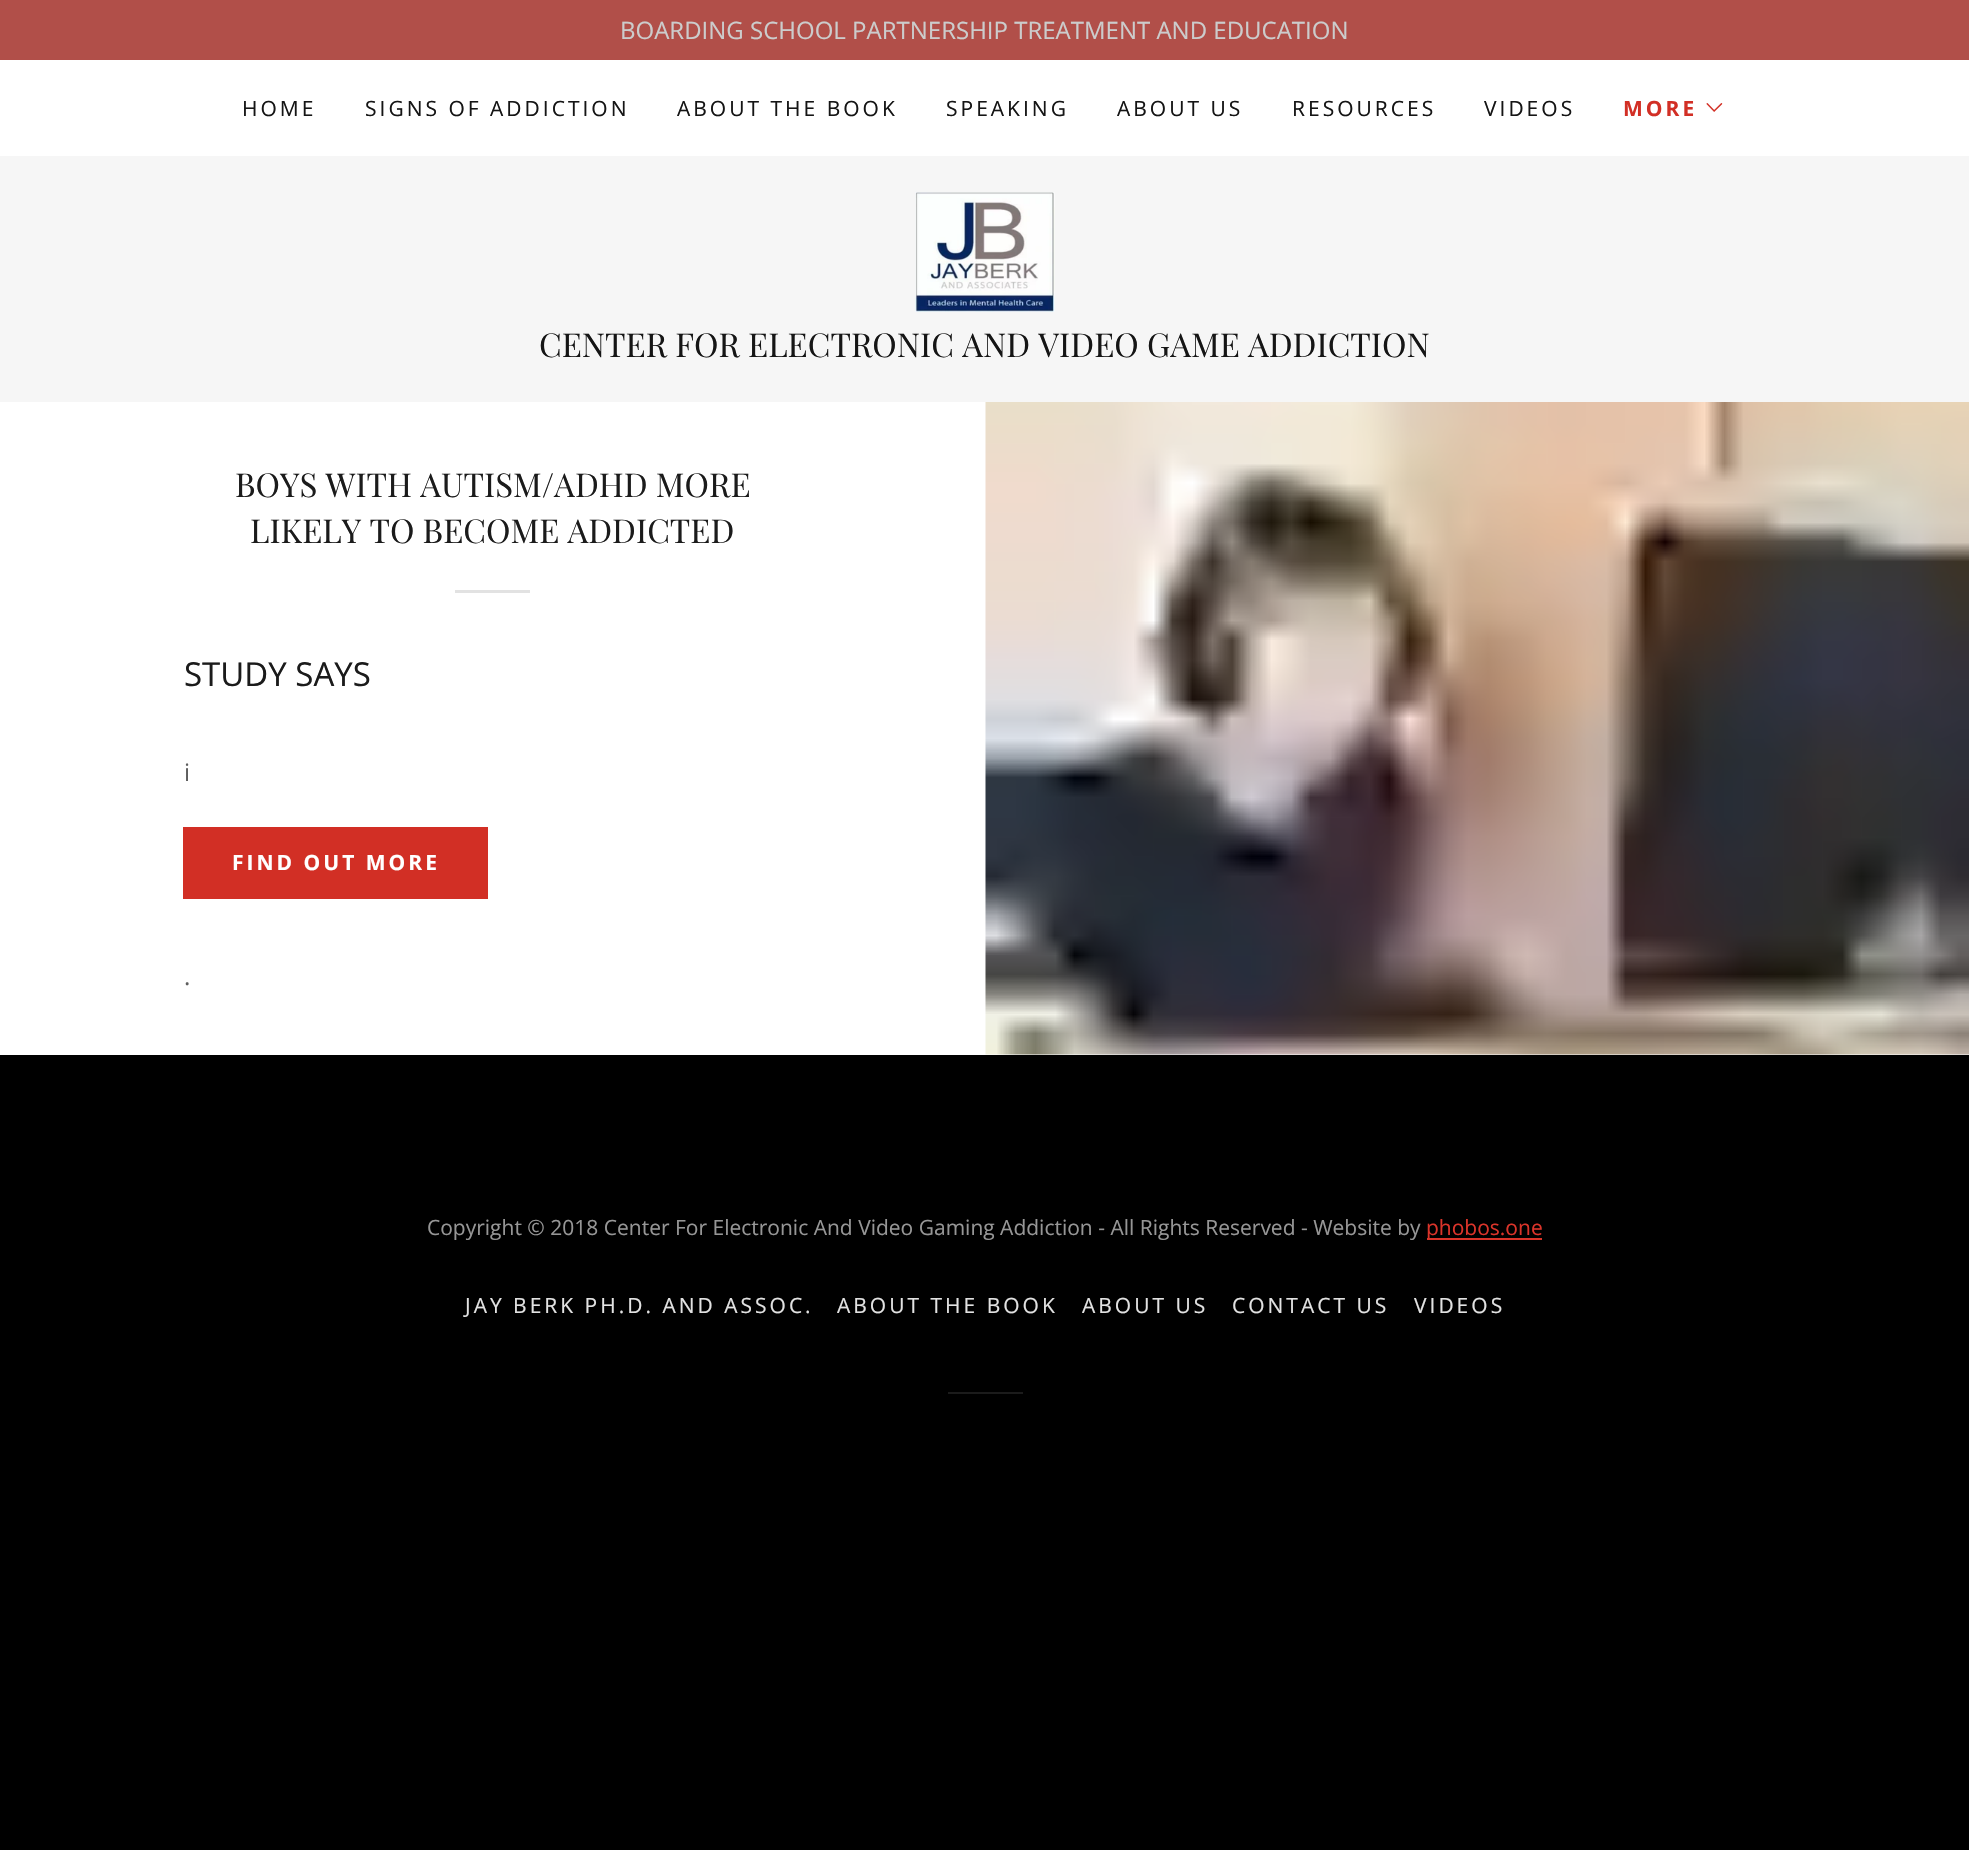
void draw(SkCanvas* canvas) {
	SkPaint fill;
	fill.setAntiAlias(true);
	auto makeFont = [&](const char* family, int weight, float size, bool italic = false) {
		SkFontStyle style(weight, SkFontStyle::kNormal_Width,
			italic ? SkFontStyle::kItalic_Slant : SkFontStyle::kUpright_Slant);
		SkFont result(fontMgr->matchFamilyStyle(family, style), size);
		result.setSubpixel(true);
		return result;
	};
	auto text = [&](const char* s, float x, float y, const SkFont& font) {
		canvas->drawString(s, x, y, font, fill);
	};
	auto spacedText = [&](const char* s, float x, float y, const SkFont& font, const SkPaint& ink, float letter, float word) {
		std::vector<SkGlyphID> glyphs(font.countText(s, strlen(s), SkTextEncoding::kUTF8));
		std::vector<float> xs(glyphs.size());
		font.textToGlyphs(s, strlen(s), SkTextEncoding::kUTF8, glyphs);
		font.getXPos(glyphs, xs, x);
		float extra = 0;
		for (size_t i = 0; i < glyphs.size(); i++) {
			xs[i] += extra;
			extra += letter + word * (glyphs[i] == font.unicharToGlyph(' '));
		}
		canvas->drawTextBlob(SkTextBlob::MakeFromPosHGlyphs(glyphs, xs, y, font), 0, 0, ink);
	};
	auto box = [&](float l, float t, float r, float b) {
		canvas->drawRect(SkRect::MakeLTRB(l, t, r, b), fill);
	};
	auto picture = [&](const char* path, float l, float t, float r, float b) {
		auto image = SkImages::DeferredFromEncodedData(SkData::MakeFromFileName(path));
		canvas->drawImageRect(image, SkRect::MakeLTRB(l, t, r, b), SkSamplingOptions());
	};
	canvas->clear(0xFF000000);
	fill.setColor(0xFFF6F6F6);
	box(0, 156, 1969, 402);
	fill.setColor(0xFFB14F49);
	box(0, 0, 1969, 60);
	fill.setColor(0xFFFFFFFF);
	box(0, 60, 1969, 156);
	picture("image0.png", 1706, 103, 1723, 112);
	picture("image1.png", 915, 192, 1055, 312);
	box(0, 402, 1969, 1055);
	fill.setColor(0xFFE2E2E2);
	box(455, 590, 530, 593);
	fill.setColor(0xFFD22F25);
	box(183, 827, 488, 899);
	picture("image2.png", 985, 402, 1969, 1055);
	fill.setColor(0xFFDB342A);
	box(1427, 1238, 1542, 1240);
	fill.setColor(0xFF1B1B1B);
	box(948, 1392, 1023, 1394);
	auto font1 = makeFont("Open Sans", 400, 24);
	fill.setColor(0xFFCCCCCC);
	text("BOARDING SCHOOL PARTNERSHIP TREATMENT AND EDUCATION", 620, 39, font1);
	auto font2 = makeFont("Open Sans", 400, 21);
	fill.setColor(0xFF151515);
	spacedText("HOME", 242, 116, font2, fill, 3, 0);
	spacedText("SIGNS OF ADDICTION", 365, 116, font2, fill, 3, 0);
	spacedText("ABOUT THE BOOK", 677, 116, font2, fill, 3, 0);
	spacedText("SPEAKING", 946, 116, font2, fill, 3, 0);
	spacedText("ABOUT US", 1117, 116, font2, fill, 3, 0);
	spacedText("RESOURCES", 1292, 116, font2, fill, 3, 0);
	spacedText("VIDEOS", 1484, 116, font2, fill, 3, 0);
	auto font3 = makeFont("Open Sans", 700, 21);
	fill.setColor(0xFFD22F25);
	spacedText("MORE", 1623, 116, font3, fill, 3, 0);
	auto font4 = makeFont("Playfair Display", 400, 33);
	fill.setColor(0xFF151515);
	text("CENTER FOR ELECTRONIC AND VIDEO GAME ADDICTION", 539, 357, font4);
	fill.setColor(0xFF1B1B1B);
	text("BOYS WITH AUTISM/ADHD MORE", 235, 497, font4);
	text("LIKELY TO BECOME ADDICTED", 250, 543, font4);
	auto font5 = makeFont("Open Sans", 400, 33);
	text("STUDY SAYS", 184, 686, font5);
	fill.setColor(0xFF5E5E5E);
	text("i", 184, 781, font1);
	fill.setColor(0xFFFFFFFF);
	spacedText("FIND OUT MORE", 232, 870, font3, fill, 3, 0);
	fill.setColor(0xFF5E5E5E);
	text(".", 184, 985, font1);
	fill.setColor(0xFF969696);
	text("Copyright © 2018 Center For Electronic And Video Gaming Addiction - All Rights Reserved - Website by", 427, 1235, font2);
	fill.setColor(0xFFDB342A);
	text("phobos.one", 1426, 1235, font2);
	fill.setColor(0xFFE2E2E2);
	spacedText("JAY BERK PH.D. AND ASSOC.", 465, 1313, font2, fill, 3, 0);
	spacedText("ABOUT THE BOOK", 837, 1313, font2, fill, 3, 0);
	spacedText("ABOUT US", 1082, 1313, font2, fill, 3, 0);
	spacedText("CONTACT US", 1232, 1313, font2, fill, 3, 0);
	spacedText("VIDEOS", 1414, 1313, font2, fill, 3, 0);
}
